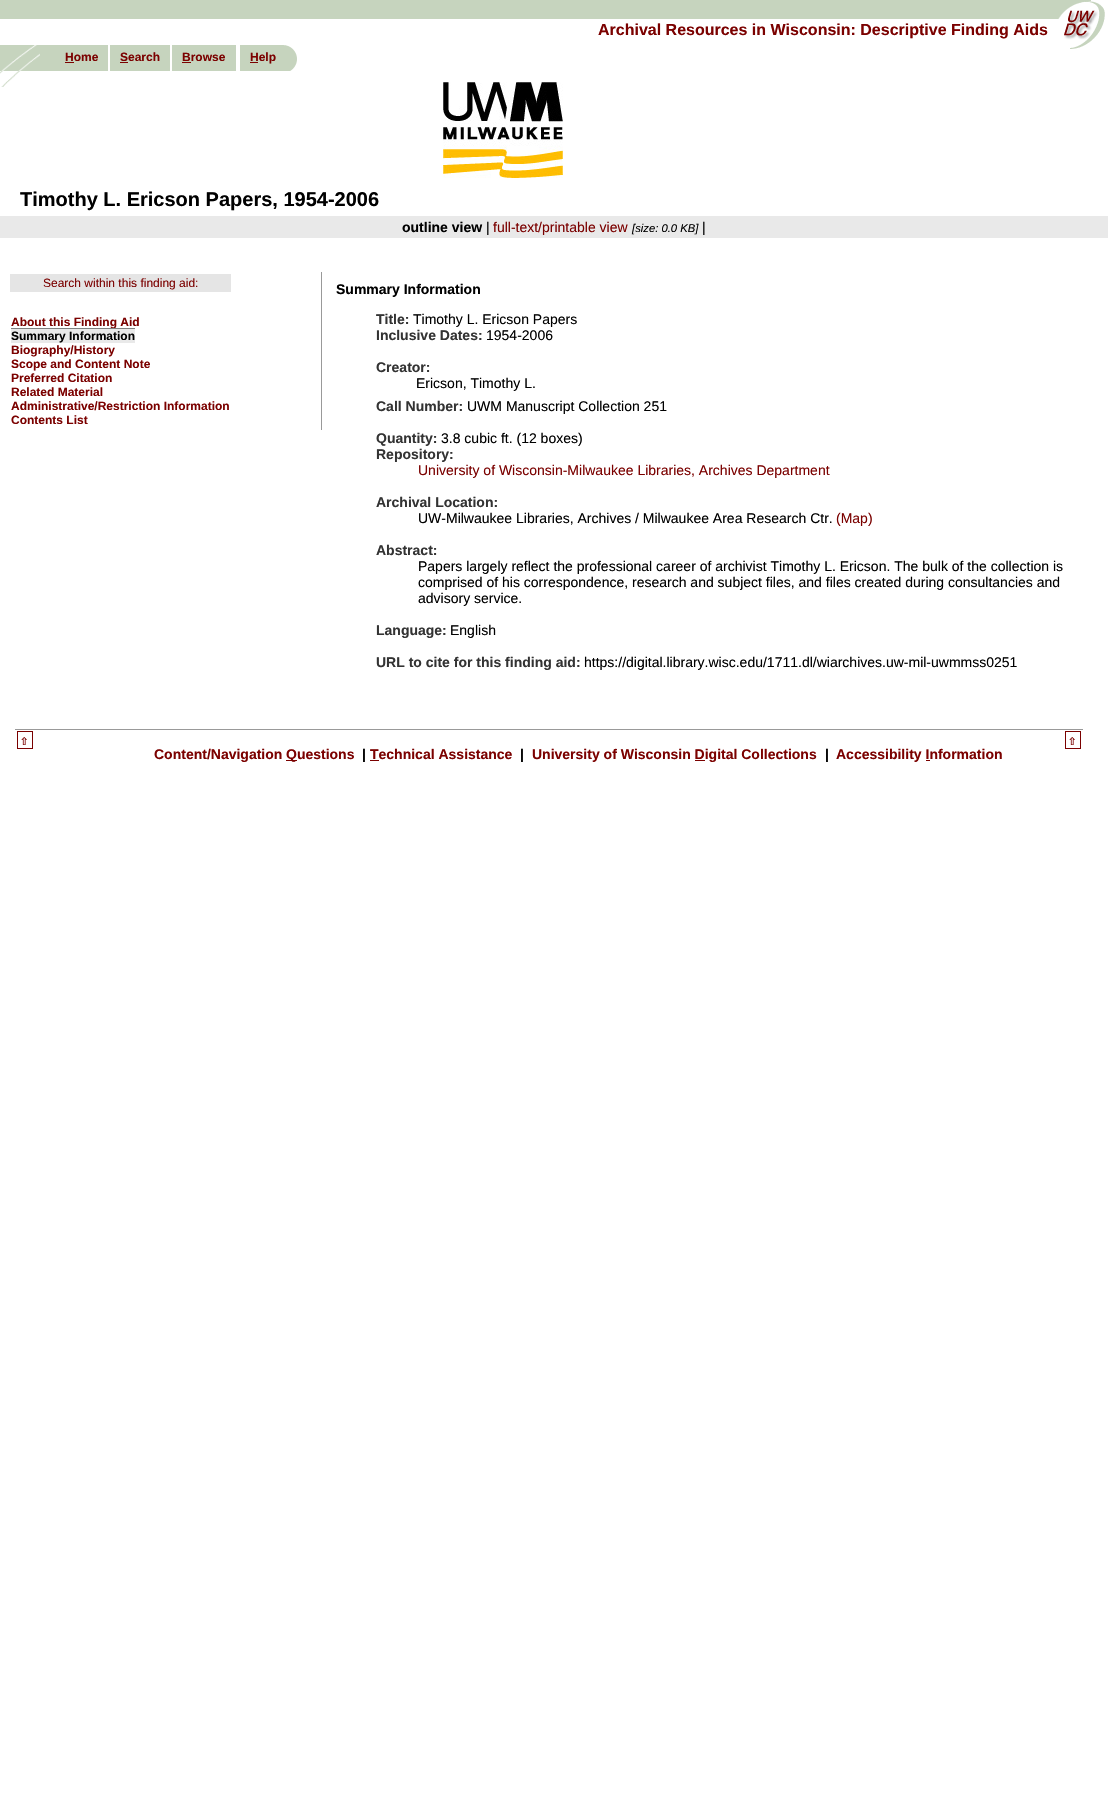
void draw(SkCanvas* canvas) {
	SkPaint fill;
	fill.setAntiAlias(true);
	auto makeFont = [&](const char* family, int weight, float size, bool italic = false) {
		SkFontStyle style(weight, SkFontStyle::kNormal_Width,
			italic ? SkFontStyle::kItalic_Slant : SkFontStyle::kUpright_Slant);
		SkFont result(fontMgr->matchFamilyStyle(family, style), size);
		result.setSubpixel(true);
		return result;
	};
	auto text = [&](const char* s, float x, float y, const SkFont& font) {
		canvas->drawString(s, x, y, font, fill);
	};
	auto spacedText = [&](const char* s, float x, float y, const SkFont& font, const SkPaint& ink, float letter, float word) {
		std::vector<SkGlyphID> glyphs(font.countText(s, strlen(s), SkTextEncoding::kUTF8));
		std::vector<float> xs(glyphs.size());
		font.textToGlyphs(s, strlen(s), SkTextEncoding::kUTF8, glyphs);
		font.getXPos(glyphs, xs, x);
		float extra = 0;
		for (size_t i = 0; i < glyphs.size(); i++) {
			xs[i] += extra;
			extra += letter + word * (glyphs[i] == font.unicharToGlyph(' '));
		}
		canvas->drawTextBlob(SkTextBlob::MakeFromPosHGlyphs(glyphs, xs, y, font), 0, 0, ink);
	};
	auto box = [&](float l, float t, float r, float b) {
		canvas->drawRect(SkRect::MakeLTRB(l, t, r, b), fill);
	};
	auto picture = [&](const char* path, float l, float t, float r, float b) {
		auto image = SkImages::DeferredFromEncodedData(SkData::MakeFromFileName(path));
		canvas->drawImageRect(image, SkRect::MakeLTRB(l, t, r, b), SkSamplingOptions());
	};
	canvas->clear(0xFFFFFFFF);
	fill.setColor(0xFFC6D4BE);
	box(0, 0, 1058, 19);
	picture("image0.png", 1058, 0, 1108, 49);
	picture("image1.png", 0, 45, 40, 87);
	box(40, 45, 108, 71);
	fill.setColor(0xFF7B0100);
	box(65, 62, 74, 63);
	fill.setColor(0xFFC6D4BE);
	box(110, 45, 170, 71);
	fill.setColor(0xFF7B0100);
	box(120, 62, 128, 63);
	fill.setColor(0xFFC6D4BE);
	box(172, 45, 236, 71);
	fill.setColor(0xFF7B0100);
	box(182, 62, 191, 63);
	picture("image2.png", 240, 45, 297, 71);
	box(250, 62, 258, 63);
	picture("image3.png", 443, 82, 563, 178);
	fill.setColor(0xFFE9E9E9);
	box(0, 216, 1108, 238);
	fill.setColor(0xFF999999);
	box(321, 272, 322, 430);
	fill.setColor(0xFFE5E5E5);
	box(10, 274, 231, 292);
	fill.setColor(0xFFE9E9E9);
	box(11, 329, 135, 343);
	fill.setColor(0xFF999999);
	box(15, 729, 1083, 730);
	fill.setStyle(SkPaint::kStroke_Style);
	fill.setStrokeWidth(1);
	fill.setColor(0xFF7B0100);
	canvas->drawRect(SkRect::MakeLTRB(17.5f, 731.5f, 32.5f, 748.5f), fill);
	canvas->drawRect(SkRect::MakeLTRB(1065.5f, 731.5f, 1080.5f, 748.5f), fill);
	fill.setStyle(SkPaint::kFill_Style);
	box(286, 760, 297, 761);
	box(370, 760, 379, 761);
	box(695, 760, 705, 761);
	box(926, 760, 930, 761);
	auto font1 = makeFont("Liberation Sans", 700, 16);
	text("Archival Resources in Wisconsin: Descriptive Finding Aids", 598, 35, font1);
	auto font2 = makeFont("Liberation Sans", 700, 12);
	text("Home", 65, 61, font2);
	text("Search", 120, 61, font2);
	text("Browse", 182, 61, font2);
	text("Help", 250, 61, font2);
	auto font3 = makeFont("Liberation Sans", 700, 20);
	fill.setColor(0xFF000000);
	text("Timothy L. Ericson Papers, 1954-2006", 20, 206, font3);
	auto font4 = makeFont("Liberation Sans", 700, 14);
	text("outline view", 402, 232, font4);
	auto font5 = makeFont("Liberation Sans", 400, 14);
	text("|", 486, 232, font5);
	fill.setColor(0xFF7B0100);
	text("full-text/printable view", 493, 232, font5);
	auto font6 = makeFont("Liberation Sans", 400, 11.25f, true);
	fill.setColor(0xFF000000);
	text("[size: 0.0 KB]", 632, 232, font6);
	text("|", 702, 232, font5);
	auto font7 = makeFont("Liberation Sans", 400, 12);
	fill.setColor(0xFF7B0100);
	text("Search within this finding aid:", 43, 287, font7);
	text("About this Finding Aid", 11, 326, font2);
	fill.setColor(0xFF000000);
	text("Summary Information", 11, 340, font2);
	fill.setColor(0xFF808080);
	box(11, 328, 135, 329);
	fill.setColor(0xFF7B0100);
	text("Biography/History", 11, 354, font2);
	text("Scope and Content Note", 11, 368, font2);
	text("Preferred Citation", 11, 382, font2);
	text("Related Material", 11, 396, font2);
	text("Administrative/Restriction Information", 11, 410, font2);
	text("Contents List", 11, 424, font2);
	fill.setColor(0xFF000000);
	text("Summary Information", 336, 294, font4);
	fill.setColor(0xFF333333);
	text("Title:", 376, 324, font4);
	fill.setColor(0xFF000000);
	text("Timothy L. Ericson Papers", 413, 324, font5);
	fill.setColor(0xFF333333);
	text("Inclusive Dates:", 376, 340, font4);
	fill.setColor(0xFF000000);
	text("1954-2006", 486, 340, font5);
	fill.setColor(0xFF333333);
	text("Creator:", 376, 372, font4);
	fill.setColor(0xFF000000);
	text("Ericson, Timothy L.", 416, 388, font5);
	fill.setColor(0xFF333333);
	text("Call Number:", 376, 411, font4);
	fill.setColor(0xFF000000);
	text("UWM Manuscript Collection 251", 467, 411, font5);
	fill.setColor(0xFF333333);
	text("Quantity:", 376, 443, font4);
	fill.setColor(0xFF000000);
	text("3.8 cubic ft. (12 boxes)", 441, 443, font5);
	fill.setColor(0xFF333333);
	text("Repository:", 376, 459, font4);
	fill.setColor(0xFF7B0100);
	text("University of Wisconsin-Milwaukee Libraries, Archives Department", 418, 475, font5);
	fill.setColor(0xFF333333);
	text("Archival Location:", 376, 507, font4);
	fill.setColor(0xFF000000);
	text("UW-Milwaukee Libraries, Archives / Milwaukee Area Research Ctr.", 418, 523, font5);
	fill.setColor(0xFF7B0100);
	text("(Map)", 836, 523, font5);
	fill.setColor(0xFF333333);
	text("Abstract:", 376, 555, font4);
	fill.setColor(0xFF000000);
	text("Papers largely reflect the professional career of archivist Timothy L. Ericson. The bulk of the collection is", 418, 571, font5);
	text("comprised of his correspondence, research and subject files, and files created during consultancies and", 418, 587, font5);
	text("advisory service.", 418, 603, font5);
	fill.setColor(0xFF333333);
	text("Language:", 376, 635, font4);
	fill.setColor(0xFF000000);
	text("English", 450, 635, font5);
	fill.setColor(0xFF333333);
	text("URL to cite for this finding aid:", 376, 667, font4);
	fill.setColor(0xFF000000);
	text("https://digital.library.wisc.edu/1711.dl/wiarchives.uw-mil-uwmmss0251", 584, 667, font5);
	auto font8 = makeFont("DejaVu Sans Mono", 700, 14);
	fill.setColor(0xFF7B0100);
	spacedText("⇧", 20, 745, font8, fill, 1, 0);
	spacedText("⇧", 1068, 745, font8, fill, 1, 0);
	text("Content/Navigation", 154, 759, font4);
	text("Questions", 286, 759, font4);
	fill.setColor(0xFF000000);
	text("|", 362, 759, font4);
	fill.setColor(0xFF7B0100);
	text("Technical Assistance", 370, 759, font4);
	fill.setColor(0xFF000000);
	text("|", 520, 759, font4);
	fill.setColor(0xFF7B0100);
	text("University of Wisconsin Digital Collections", 532, 759, font4);
	fill.setColor(0xFF000000);
	text("|", 825, 759, font4);
	fill.setColor(0xFF7B0100);
	text("Accessibility Information", 836, 759, font4);
}
